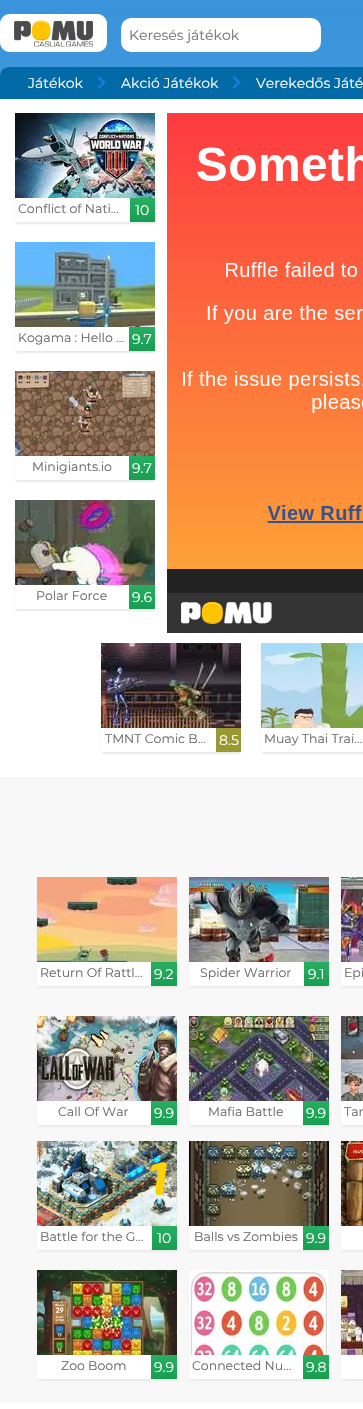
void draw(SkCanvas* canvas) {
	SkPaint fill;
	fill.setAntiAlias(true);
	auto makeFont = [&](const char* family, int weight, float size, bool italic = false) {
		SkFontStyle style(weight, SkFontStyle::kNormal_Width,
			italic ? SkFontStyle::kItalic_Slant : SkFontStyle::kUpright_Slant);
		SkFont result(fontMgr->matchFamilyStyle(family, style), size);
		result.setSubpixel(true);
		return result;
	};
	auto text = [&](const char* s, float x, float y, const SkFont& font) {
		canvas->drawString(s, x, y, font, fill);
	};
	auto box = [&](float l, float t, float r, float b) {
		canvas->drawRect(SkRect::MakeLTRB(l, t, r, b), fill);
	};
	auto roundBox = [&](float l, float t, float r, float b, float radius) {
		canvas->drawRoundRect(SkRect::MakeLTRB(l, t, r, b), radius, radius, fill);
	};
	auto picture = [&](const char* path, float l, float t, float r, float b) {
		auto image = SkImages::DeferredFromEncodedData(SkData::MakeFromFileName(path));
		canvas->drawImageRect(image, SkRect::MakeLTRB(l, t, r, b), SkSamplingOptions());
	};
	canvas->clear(0xFFFFFFFF);
	{
		const SkColor colors[] = {0xFF3994DB, 0xFFB4D1ED};
		const float stops[] = {0, 1};
		const SkPoint ends[] = {{181, 0}, {182, 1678}};
		fill.setShader(SkGradientShader::MakeLinear(ends, colors, stops, 2, SkTileMode::kClamp));
		fill.setAlpha(255);
	}
	box(0, 0, 363, 75);
	picture("image0.png", 0, 14, 107, 52);
	fill.setShader(nullptr);
	fill.setColor(0xFFFFFFFF);
	roundBox(121, 18, 321, 52, 10);
	fill.setColor(0xFFF8F8F8);
	canvas->drawPath(SkPathBuilder().moveTo(8, 67).lineTo(363, 67).cubicTo(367.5f, 67, 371, 70.5f, 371, 75).lineTo(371, 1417).lineTo(0, 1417).lineTo(0, 75).cubicTo(0, 70.5f, 3.5f, 67, 8, 67).close().detach(), fill);
	fill.setColor(0xFF026AA7);
	canvas->drawPath(SkPathBuilder().moveTo(8, 67).lineTo(363, 67).cubicTo(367.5f, 67, 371, 70.5f, 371, 75).lineTo(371, 99).lineTo(0, 99).lineTo(0, 75).cubicTo(0, 70.5f, 3.5f, 67, 8, 67).close().detach(), fill);
	picture("image1.png", 97, 76, 106, 89);
	picture("image1.png", 232, 76, 241, 89);
	fill.setColor(0xFFFFFFFF);
	box(0, 99, 363, 777);
	fill.setColor(0xFFE9E9E9);
	fill.setMaskFilter(SkMaskFilter::MakeBlur(kNormal_SkBlurStyle, 1));
	canvas->drawRoundRect(SkRect::MakeLTRB(15, 115, 155, 224), 4, 4, fill);
	fill.setMaskFilter(nullptr);
	picture("image2.png", 15, 113, 155, 198);
	fill.setColor(0xFFFFFFFF);
	box(15, 198, 130, 222);
	{
		const SkColor colors[] = {0xFF27AE61, 0xFF189E50};
		const float stops[] = {0, 1};
		const SkPoint ends[] = {{143, 198}, {143, 222}};
		fill.setShader(SkGradientShader::MakeLinear(ends, colors, stops, 2, SkTileMode::kClamp));
		fill.setAlpha(255);
	}
	box(130, 198, 155, 222);
	fill.setShader(nullptr);
	fill.setColor(0xFFE9E9E9);
	fill.setMaskFilter(SkMaskFilter::MakeBlur(kNormal_SkBlurStyle, 1));
	canvas->drawRoundRect(SkRect::MakeLTRB(15, 244, 155, 353), 4, 4, fill);
	fill.setMaskFilter(nullptr);
	picture("image3.png", 15, 242, 155, 327);
	fill.setColor(0xFFFFFFFF);
	box(15, 327, 129, 351);
	{
		const SkColor colors[] = {0xFF27AE61, 0xFF189E50};
		const float stops[] = {0, 1};
		const SkPoint ends[] = {{142, 327}, {142, 351}};
		fill.setShader(SkGradientShader::MakeLinear(ends, colors, stops, 2, SkTileMode::kClamp));
		fill.setAlpha(255);
	}
	box(129, 327, 155, 351);
	fill.setShader(nullptr);
	fill.setColor(0xFFE9E9E9);
	fill.setMaskFilter(SkMaskFilter::MakeBlur(kNormal_SkBlurStyle, 1));
	canvas->drawRoundRect(SkRect::MakeLTRB(15, 373, 155, 482), 4, 4, fill);
	fill.setMaskFilter(nullptr);
	picture("image4.png", 15, 371, 155, 456);
	fill.setColor(0xFFFFFFFF);
	box(15, 456, 129, 480);
	{
		const SkColor colors[] = {0xFF27AE61, 0xFF189E50};
		const float stops[] = {0, 1};
		const SkPoint ends[] = {{142, 456}, {142, 480}};
		fill.setShader(SkGradientShader::MakeLinear(ends, colors, stops, 2, SkTileMode::kClamp));
		fill.setAlpha(255);
	}
	box(129, 456, 155, 480);
	fill.setShader(nullptr);
	fill.setColor(0xFFE9E9E9);
	fill.setMaskFilter(SkMaskFilter::MakeBlur(kNormal_SkBlurStyle, 1));
	canvas->drawRoundRect(SkRect::MakeLTRB(15, 502, 155, 611), 4, 4, fill);
	fill.setMaskFilter(nullptr);
	picture("image5.png", 15, 500, 155, 585);
	fill.setColor(0xFFFFFFFF);
	box(15, 585, 129, 609);
	{
		const SkColor colors[] = {0xFF27AE61, 0xFF189E50};
		const float stops[] = {0, 1};
		const SkPoint ends[] = {{142, 585}, {142, 609}};
		fill.setShader(SkGradientShader::MakeLinear(ends, colors, stops, 2, SkTileMode::kClamp));
		fill.setAlpha(255);
	}
	box(129, 585, 155, 609);
	picture("image6.png", 167, 113, 363, 593);
	fill.setShader(nullptr);
	fill.setColor(0xFF333333);
	box(167, 593, 363, 633);
	picture("image7.png", 181, 602, 272, 624);
	fill.setColor(0xFFE9E9E9);
	fill.setMaskFilter(SkMaskFilter::MakeBlur(kNormal_SkBlurStyle, 1));
	canvas->drawRoundRect(SkRect::MakeLTRB(101, 645, 241, 754), 4, 4, fill);
	fill.setMaskFilter(nullptr);
	picture("image8.png", 101, 643, 241, 728);
	fill.setColor(0xFFFFFFFF);
	box(101, 728, 216, 752);
	fill.setColor(0xFF999933);
	box(216, 728, 241, 752);
	fill.setColor(0xFFE9E9E9);
	fill.setMaskFilter(SkMaskFilter::MakeBlur(kNormal_SkBlurStyle, 1));
	canvas->drawRoundRect(SkRect::MakeLTRB(261, 645, 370, 754), 4, 4, fill);
	fill.setMaskFilter(nullptr);
	picture("image9.png", 261, 643, 363, 728);
	fill.setColor(0xFFFFFFFF);
	box(261, 728, 363, 752);
	fill.setColor(0xFFE9E9E9);
	fill.setMaskFilter(SkMaskFilter::MakeBlur(kNormal_SkBlurStyle, 1));
	canvas->drawRoundRect(SkRect::MakeLTRB(37, 879, 177, 988), 4, 4, fill);
	fill.setMaskFilter(nullptr);
	picture("image10.png", 37, 877, 177, 962);
	fill.setColor(0xFFFFFFFF);
	box(37, 962, 151, 986);
	{
		const SkColor colors[] = {0xFF27AE61, 0xFF189E50};
		const float stops[] = {0, 1};
		const SkPoint ends[] = {{164, 962}, {164, 986}};
		fill.setShader(SkGradientShader::MakeLinear(ends, colors, stops, 2, SkTileMode::kClamp));
		fill.setAlpha(255);
	}
	box(151, 962, 177, 986);
	fill.setShader(nullptr);
	fill.setColor(0xFFE9E9E9);
	fill.setMaskFilter(SkMaskFilter::MakeBlur(kNormal_SkBlurStyle, 1));
	canvas->drawRoundRect(SkRect::MakeLTRB(189, 879, 329, 988), 4, 4, fill);
	fill.setMaskFilter(nullptr);
	picture("image11.png", 189, 877, 329, 962);
	fill.setColor(0xFFFFFFFF);
	box(189, 962, 304, 986);
	{
		const SkColor colors[] = {0xFF27AE61, 0xFF189E50};
		const float stops[] = {0, 1};
		const SkPoint ends[] = {{317, 962}, {317, 986}};
		fill.setShader(SkGradientShader::MakeLinear(ends, colors, stops, 2, SkTileMode::kClamp));
		fill.setAlpha(255);
	}
	box(304, 962, 329, 986);
	fill.setShader(nullptr);
	fill.setColor(0xFFE9E9E9);
	fill.setMaskFilter(SkMaskFilter::MakeBlur(kNormal_SkBlurStyle, 1));
	canvas->drawRoundRect(SkRect::MakeLTRB(341, 879, 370, 988), 4, 4, fill);
	fill.setMaskFilter(nullptr);
	picture("image12.png", 341, 877, 363, 962);
	fill.setColor(0xFFFFFFFF);
	box(341, 962, 363, 986);
	fill.setColor(0xFFE9E9E9);
	fill.setMaskFilter(SkMaskFilter::MakeBlur(kNormal_SkBlurStyle, 1));
	canvas->drawRoundRect(SkRect::MakeLTRB(37, 1018, 177, 1127), 4, 4, fill);
	fill.setMaskFilter(nullptr);
	picture("image13.png", 37, 1016, 177, 1101);
	fill.setColor(0xFFFFFFFF);
	box(37, 1101, 151, 1125);
	{
		const SkColor colors[] = {0xFF27AE61, 0xFF189E50};
		const float stops[] = {0, 1};
		const SkPoint ends[] = {{164, 1101}, {164, 1125}};
		fill.setShader(SkGradientShader::MakeLinear(ends, colors, stops, 2, SkTileMode::kClamp));
		fill.setAlpha(255);
	}
	box(151, 1101, 177, 1125);
	fill.setShader(nullptr);
	fill.setColor(0xFFE9E9E9);
	fill.setMaskFilter(SkMaskFilter::MakeBlur(kNormal_SkBlurStyle, 1));
	canvas->drawRoundRect(SkRect::MakeLTRB(189, 1018, 329, 1127), 4, 4, fill);
	fill.setMaskFilter(nullptr);
	picture("image14.png", 189, 1016, 329, 1101);
	fill.setColor(0xFFFFFFFF);
	box(189, 1101, 303, 1125);
	{
		const SkColor colors[] = {0xFF27AE61, 0xFF189E50};
		const float stops[] = {0, 1};
		const SkPoint ends[] = {{316, 1101}, {316, 1125}};
		fill.setShader(SkGradientShader::MakeLinear(ends, colors, stops, 2, SkTileMode::kClamp));
		fill.setAlpha(255);
	}
	box(303, 1101, 329, 1125);
	fill.setShader(nullptr);
	fill.setColor(0xFFE9E9E9);
	fill.setMaskFilter(SkMaskFilter::MakeBlur(kNormal_SkBlurStyle, 1));
	canvas->drawRoundRect(SkRect::MakeLTRB(341, 1018, 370, 1127), 4, 4, fill);
	fill.setMaskFilter(nullptr);
	picture("image15.png", 341, 1016, 363, 1101);
	fill.setColor(0xFFFFFFFF);
	box(341, 1101, 363, 1125);
	fill.setColor(0xFFE9E9E9);
	fill.setMaskFilter(SkMaskFilter::MakeBlur(kNormal_SkBlurStyle, 1));
	canvas->drawRoundRect(SkRect::MakeLTRB(37, 1143, 177, 1252), 4, 4, fill);
	fill.setMaskFilter(nullptr);
	picture("image16.png", 37, 1141, 177, 1226);
	fill.setColor(0xFFFFFFFF);
	box(37, 1226, 152, 1250);
	{
		const SkColor colors[] = {0xFF27AE61, 0xFF189E50};
		const float stops[] = {0, 1};
		const SkPoint ends[] = {{165, 1226}, {165, 1250}};
		fill.setShader(SkGradientShader::MakeLinear(ends, colors, stops, 2, SkTileMode::kClamp));
		fill.setAlpha(255);
	}
	box(152, 1226, 177, 1250);
	fill.setShader(nullptr);
	fill.setColor(0xFFE9E9E9);
	fill.setMaskFilter(SkMaskFilter::MakeBlur(kNormal_SkBlurStyle, 1));
	canvas->drawRoundRect(SkRect::MakeLTRB(189, 1143, 329, 1252), 4, 4, fill);
	fill.setMaskFilter(nullptr);
	picture("image17.png", 189, 1141, 329, 1226);
	fill.setColor(0xFFFFFFFF);
	box(189, 1226, 303, 1250);
	{
		const SkColor colors[] = {0xFF27AE61, 0xFF189E50};
		const float stops[] = {0, 1};
		const SkPoint ends[] = {{316, 1226}, {316, 1250}};
		fill.setShader(SkGradientShader::MakeLinear(ends, colors, stops, 2, SkTileMode::kClamp));
		fill.setAlpha(255);
	}
	box(303, 1226, 329, 1250);
	fill.setShader(nullptr);
	fill.setColor(0xFFE9E9E9);
	fill.setMaskFilter(SkMaskFilter::MakeBlur(kNormal_SkBlurStyle, 1));
	canvas->drawRoundRect(SkRect::MakeLTRB(341, 1143, 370, 1252), 4, 4, fill);
	fill.setMaskFilter(nullptr);
	picture("image18.png", 341, 1141, 363, 1226);
	fill.setColor(0xFFFFFFFF);
	box(341, 1226, 363, 1250);
	fill.setColor(0xFFE9E9E9);
	fill.setMaskFilter(SkMaskFilter::MakeBlur(kNormal_SkBlurStyle, 1));
	canvas->drawRoundRect(SkRect::MakeLTRB(37, 1272, 177, 1381), 4, 4, fill);
	fill.setMaskFilter(nullptr);
	picture("image19.png", 37, 1270, 177, 1355);
	fill.setColor(0xFFFFFFFF);
	box(37, 1355, 151, 1379);
	{
		const SkColor colors[] = {0xFF27AE61, 0xFF189E50};
		const float stops[] = {0, 1};
		const SkPoint ends[] = {{164, 1355}, {164, 1379}};
		fill.setShader(SkGradientShader::MakeLinear(ends, colors, stops, 2, SkTileMode::kClamp));
		fill.setAlpha(255);
	}
	box(151, 1355, 177, 1379);
	fill.setShader(nullptr);
	fill.setColor(0xFFE9E9E9);
	fill.setMaskFilter(SkMaskFilter::MakeBlur(kNormal_SkBlurStyle, 1));
	canvas->drawRoundRect(SkRect::MakeLTRB(189, 1272, 329, 1381), 4, 4, fill);
	fill.setMaskFilter(nullptr);
	picture("image20.png", 189, 1270, 329, 1355);
	fill.setColor(0xFFFFFFFF);
	box(189, 1355, 303, 1379);
	{
		const SkColor colors[] = {0xFF27AE61, 0xFF189E50};
		const float stops[] = {0, 1};
		const SkPoint ends[] = {{316, 1355}, {316, 1379}};
		fill.setShader(SkGradientShader::MakeLinear(ends, colors, stops, 2, SkTileMode::kClamp));
		fill.setAlpha(255);
	}
	box(303, 1355, 329, 1379);
	fill.setShader(nullptr);
	fill.setColor(0xFFE9E9E9);
	fill.setMaskFilter(SkMaskFilter::MakeBlur(kNormal_SkBlurStyle, 1));
	canvas->drawRoundRect(SkRect::MakeLTRB(341, 1272, 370, 1381), 4, 4, fill);
	fill.setMaskFilter(nullptr);
	picture("image21.png", 341, 1270, 363, 1355);
	fill.setColor(0xFFFFFFFF);
	box(341, 1355, 363, 1379);
	box(0, 1403, 363, 1409);
	auto font1 = makeFont("Montserrat", 400, 14);
	fill.setColor(0xFF757575);
	text("Keresés játékok", 129, 40, font1);
	fill.setColor(0xFFFFFFFF);
	text("Játékok", 28, 88, font1);
	text("Akció Játékok", 121, 88, font1);
	text("Verekedős Játé", 256, 88, font1);
	auto font2 = makeFont("Montserrat", 400, 12.5f);
	fill.setColor(0xFF6B6B6B);
	text("Conflict of Nati…", 18, 213, font2);
	fill.setColor(0xFFFFFFFF);
	text("10", 135, 215, font1);
	fill.setColor(0xFF6B6B6B);
	text("Kogama : Hello …", 18, 342, font2);
	fill.setColor(0xFFFFFFFF);
	text("9.7", 132, 344, font1);
	fill.setColor(0xFF6B6B6B);
	text("Minigiants.io", 32, 471, font2);
	fill.setColor(0xFFFFFFFF);
	text("9.7", 132, 473, font1);
	fill.setColor(0xFF6B6B6B);
	text("Polar Force", 36, 600, font2);
	fill.setColor(0xFFFFFFFF);
	text("9.6", 132, 602, font1);
	fill.setColor(0xFF6B6B6B);
	text("TMNT Comic B…", 105, 743, font2);
	fill.setColor(0xFFFFFFFF);
	text("8.5", 219, 745, font1);
	fill.setColor(0xFF6B6B6B);
	text("Muay Thai Trai…", 264, 743, font2);
	text("Return Of Rattl…", 40, 977, font2);
	fill.setColor(0xFFFFFFFF);
	text("9.2", 154, 979, font1);
	fill.setColor(0xFF6B6B6B);
	text("Spider Warrior", 200, 977, font2);
	fill.setColor(0xFFFFFFFF);
	text("9.1", 308, 979, font1);
	fill.setColor(0xFF6B6B6B);
	text("Epi", 344, 977, font2);
	text("Call Of War", 58, 1116, font2);
	fill.setColor(0xFFFFFFFF);
	text("9.9", 154, 1118, font1);
	fill.setColor(0xFF6B6B6B);
	text("Mafia Battle", 208, 1116, font2);
	fill.setColor(0xFFFFFFFF);
	text("9.9", 306, 1118, font1);
	fill.setColor(0xFF6B6B6B);
	text("Tan", 344, 1116, font2);
	auto font3 = makeFont("Pacifico", 400, 56);
	fill.setColor(0xFFFFD203);
	text("1", 148, 1195, font3);
	fill.setColor(0xFF6B6B6B);
	text("Battle for the G…", 40, 1241, font2);
	fill.setColor(0xFFFFFFFF);
	text("10", 157, 1243, font1);
	fill.setColor(0xFF6B6B6B);
	text("Balls vs Zombies", 194, 1241, font2);
	fill.setColor(0xFFFFFFFF);
	text("9.9", 306, 1243, font1);
	fill.setColor(0xFF6B6B6B);
	text("Zoo Boom", 61, 1370, font2);
	fill.setColor(0xFFFFFFFF);
	text("9.9", 154, 1372, font1);
	fill.setColor(0xFF6B6B6B);
	text("Connected Nu…", 192, 1370, font2);
	fill.setColor(0xFFFFFFFF);
	text("9.8", 306, 1372, font1);
}
